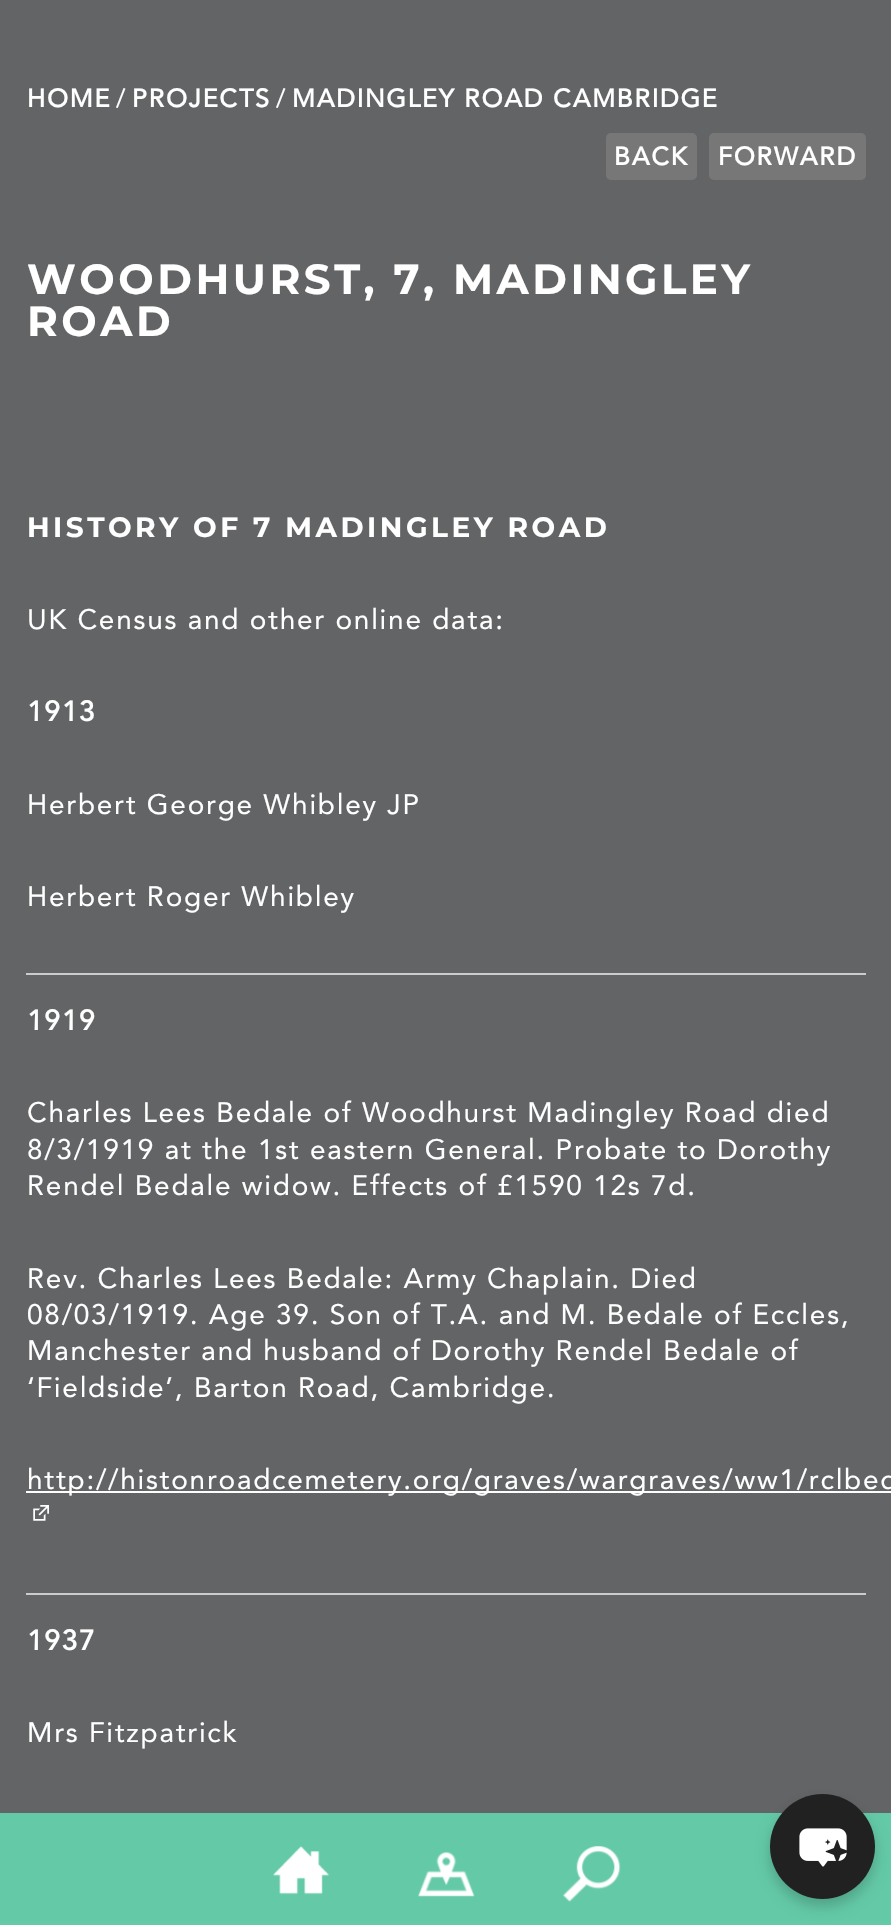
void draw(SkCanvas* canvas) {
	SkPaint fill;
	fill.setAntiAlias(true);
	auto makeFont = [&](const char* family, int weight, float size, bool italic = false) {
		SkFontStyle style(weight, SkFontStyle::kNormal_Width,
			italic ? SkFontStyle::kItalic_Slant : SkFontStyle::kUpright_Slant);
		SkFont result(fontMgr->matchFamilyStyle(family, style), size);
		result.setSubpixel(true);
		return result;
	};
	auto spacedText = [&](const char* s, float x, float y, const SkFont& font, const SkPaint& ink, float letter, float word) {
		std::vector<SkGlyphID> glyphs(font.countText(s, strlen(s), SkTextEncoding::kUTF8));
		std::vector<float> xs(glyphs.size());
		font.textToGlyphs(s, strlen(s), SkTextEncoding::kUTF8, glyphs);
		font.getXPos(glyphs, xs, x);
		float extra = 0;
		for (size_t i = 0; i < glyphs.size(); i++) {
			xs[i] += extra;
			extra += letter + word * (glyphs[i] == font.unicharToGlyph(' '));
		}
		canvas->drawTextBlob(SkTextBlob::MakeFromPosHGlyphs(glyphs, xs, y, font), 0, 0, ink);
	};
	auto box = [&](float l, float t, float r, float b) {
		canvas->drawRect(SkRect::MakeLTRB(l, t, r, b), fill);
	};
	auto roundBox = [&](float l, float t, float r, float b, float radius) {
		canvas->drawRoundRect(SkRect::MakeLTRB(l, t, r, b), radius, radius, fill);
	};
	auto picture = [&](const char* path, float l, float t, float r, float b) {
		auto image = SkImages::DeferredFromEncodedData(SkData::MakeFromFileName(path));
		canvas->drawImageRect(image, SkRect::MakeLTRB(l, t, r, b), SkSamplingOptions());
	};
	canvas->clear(0xFF63C9A6);
	fill.setColor(0xFF636466);
	box(0, 0, 891, 1813);
	fill.setColor(0xFF777777);
	roundBox(606, 133, 697, 180, 5);
	roundBox(709, 133, 866, 180, 5);
	fill.setColor(0xFFCCCCCC);
	box(26, 973, 866, 975);
	fill.setColor(0xFFFFFFFF);
	box(26, 1491, 891, 1493);
	picture("image0.png", 33, 1505, 49, 1521);
	fill.setColor(0xFFCCCCCC);
	box(26, 1593, 866, 1595);
	picture("image1.png", 273, 1846, 330, 1895);
	picture("image2.png", 418, 1852, 475, 1897);
	picture("image3.png", 563, 1846, 621, 1902);
	fill.setColor(0x33000000);
	fill.setMaskFilter(SkMaskFilter::MakeBlur(kNormal_SkBlurStyle, 7));
	canvas->drawRoundRect(SkRect::MakeLTRB(770, 1801, 875, 1906), 52.5f, 52.5f, fill);
	fill.setMaskFilter(nullptr);
	fill.setColor(0xFF212121);
	canvas->drawCircle(822.5f, 1846.5f, 52.5f, fill);
	picture("image4.png", 799, 1828, 847, 1867);
	auto font1 = makeFont("Avenir", 700, 25.25f);
	fill.setColor(0xFFFFFFFF);
	spacedText("HOME", 27, 107, font1, fill, 1.75f, 0);
	auto font2 = makeFont("Avenir", 400, 25.25f);
	spacedText("/", 116, 107, font2, fill, 1.75f, 0);
	spacedText("PROJECTS", 132, 107, font1, fill, 1.75f, 0);
	spacedText("/", 276, 107, font2, fill, 1.75f, 0);
	spacedText("MADINGLEY ROAD CAMBRIDGE", 292, 107, font1, fill, 1.75f, 0);
	spacedText("BACK", 614, 165, font1, fill, 1.75f, 0);
	spacedText("FORWARD", 718, 165, font1, fill, 1.75f, 0);
	auto font3 = makeFont("Montserrat", 700, 42);
	spacedText("WOODHURST, 7, MADINGLEY", 27, 294, font3, fill, 3.5f, 0);
	spacedText("ROAD", 27, 336, font3, fill, 3.5f, 0);
	auto font4 = makeFont("Montserrat", 700, 28);
	spacedText("HISTORY OF 7 MADINGLEY ROAD", 27, 537, font4, fill, 3.5f, 0);
	auto font5 = makeFont("Avenir", 400, 28);
	spacedText("UK Census and other online data:", 27, 629, font5, fill, 1.75f, 0);
	auto font6 = makeFont("Avenir", 700, 28);
	spacedText("1913", 27, 721, font6, fill, 1.75f, 0);
	spacedText("Herbert George Whibley JP", 27, 814, font5, fill, 1.75f, 0);
	spacedText("Herbert Roger Whibley", 27, 906, font5, fill, 1.75f, 0);
	spacedText("1919", 27, 1030, font6, fill, 1.75f, 0);
	spacedText("Charles Lees Bedale of Woodhurst Madingley Road died", 27, 1122, font5, fill, 1.75f, 0);
	spacedText("8/3/1919 at the 1st eastern General. Probate to Dorothy", 27, 1159, font5, fill, 1.75f, 0);
	spacedText("Rendel Bedale widow. Effects of £1590 12s 7d.", 27, 1195, font5, fill, 1.75f, 0);
	spacedText("Rev. Charles Lees Bedale: Army Chaplain. Died", 27, 1288, font5, fill, 1.75f, 0);
	spacedText("08/03/1919. Age 39. Son of T.A. and M. Bedale of Eccles,", 27, 1324, font5, fill, 1.75f, 0);
	spacedText("Manchester and husband of Dorothy Rendel Bedale of", 27, 1360, font5, fill, 1.75f, 0);
	spacedText("‘Fieldside’, Barton Road, Cambridge.", 27, 1397, font5, fill, 1.75f, 0);
	spacedText("http://histonroadcemetery.org/graves/wargraves/ww1/rclbed", 27, 1489, font5, fill, 1.75f, 0);
	spacedText("1937", 27, 1650, font6, fill, 1.75f, 0);
	spacedText("Mrs Fitzpatrick", 27, 1742, font5, fill, 1.75f, 0);
}
